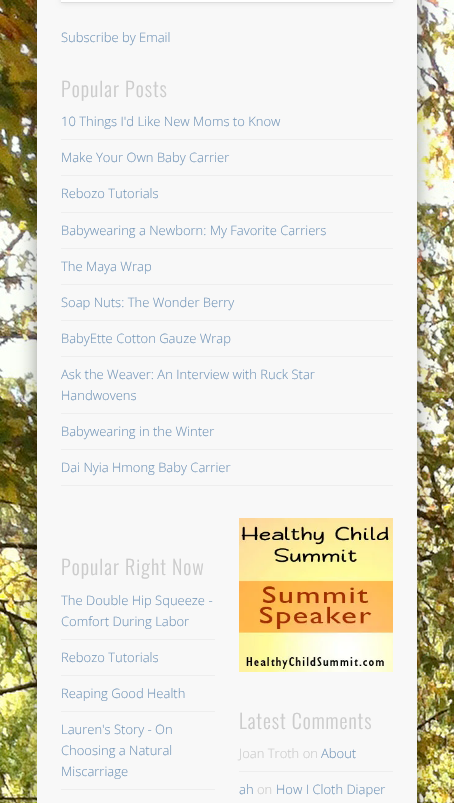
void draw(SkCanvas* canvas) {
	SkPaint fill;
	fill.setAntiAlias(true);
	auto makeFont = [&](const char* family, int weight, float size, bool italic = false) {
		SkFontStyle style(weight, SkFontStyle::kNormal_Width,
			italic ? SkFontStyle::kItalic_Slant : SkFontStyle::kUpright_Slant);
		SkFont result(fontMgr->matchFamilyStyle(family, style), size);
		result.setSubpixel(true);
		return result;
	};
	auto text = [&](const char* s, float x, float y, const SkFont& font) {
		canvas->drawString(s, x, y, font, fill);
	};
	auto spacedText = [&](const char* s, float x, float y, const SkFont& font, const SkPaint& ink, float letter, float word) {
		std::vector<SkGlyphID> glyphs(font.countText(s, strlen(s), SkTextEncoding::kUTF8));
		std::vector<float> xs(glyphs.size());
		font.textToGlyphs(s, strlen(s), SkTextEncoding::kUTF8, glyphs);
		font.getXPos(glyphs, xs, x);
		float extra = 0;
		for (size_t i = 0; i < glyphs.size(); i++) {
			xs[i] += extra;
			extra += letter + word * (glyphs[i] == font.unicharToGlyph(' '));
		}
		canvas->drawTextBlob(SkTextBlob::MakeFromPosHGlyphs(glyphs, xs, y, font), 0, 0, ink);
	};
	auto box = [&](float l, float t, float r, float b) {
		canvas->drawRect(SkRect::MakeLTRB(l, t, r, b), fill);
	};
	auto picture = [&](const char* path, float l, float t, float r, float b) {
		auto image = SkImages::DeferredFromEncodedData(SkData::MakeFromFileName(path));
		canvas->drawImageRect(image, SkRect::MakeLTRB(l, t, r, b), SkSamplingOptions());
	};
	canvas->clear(0xFFFFFFFF);
	picture("image0.png", 0, 0, 454, 803);
	fill.setColor(0x66000000);
	fill.setMaskFilter(SkMaskFilter::MakeBlur(kNormal_SkBlurStyle, 9));
	canvas->drawRect(SkRect::MakeLTRB(37, -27, 417, 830), fill);
	fill.setMaskFilter(nullptr);
	fill.setColor(0xFFF8F8F8);
	box(37, 0, 417, 803);
	fill.setColor(0x1A000000);
	fill.setMaskFilter(SkMaskFilter::MakeBlur(kNormal_SkBlurStyle, 2.5f));
	canvas->drawRect(SkRect::MakeLTRB(61, -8, 393, 3), fill);
	fill.setMaskFilter(nullptr);
	fill.setColor(0xFFFFFFFF);
	box(61, 0, 393, 2);
	fill.setColor(0xFFDEDEDE);
	box(61, 2, 393, 3);
	fill.setColor(0xFFEEEEEE);
	box(61, 139, 393, 140);
	box(61, 175, 393, 176);
	box(61, 212, 393, 213);
	box(61, 248, 393, 249);
	box(61, 284, 393, 285);
	box(61, 320, 393, 321);
	box(61, 356, 393, 357);
	box(61, 413, 393, 414);
	box(61, 449, 393, 450);
	box(61, 485, 393, 486);
	box(61, 639, 215, 640);
	box(61, 675, 215, 676);
	box(61, 711, 215, 712);
	box(61, 789, 215, 790);
	picture("image1.png", 239, 518, 393, 672);
	box(239, 771, 393, 772);
	auto font1 = makeFont("Open Sans", 300, 13);
	fill.setColor(0xFF7597B9);
	text("Subscribe by Email", 61, 42, font1);
	auto font2 = makeFont("Oswald", 300, 20);
	fill.setColor(0xFFCCCCCC);
	spacedText("Popular Posts", 61, 97, font2, fill, 1, 0);
	fill.setColor(0xFF7597B9);
	text("10 Things I'd Like New Moms to Know", 61, 126, font1);
	text("Make Your Own Baby Carrier", 61, 162, font1);
	text("Rebozo Tutorials", 61, 198, font1);
	text("Babywearing a Newborn: My Favorite Carriers", 61, 235, font1);
	text("The Maya Wrap", 61, 271, font1);
	text("Soap Nuts: The Wonder Berry", 61, 307, font1);
	text("BabyEtte Cotton Gauze Wrap", 61, 343, font1);
	text("Ask the Weaver: An Interview with Ruck Star", 61, 379, font1);
	text("Handwovens", 61, 400, font1);
	text("Babywearing in the Winter", 61, 436, font1);
	text("Dai Nyia Hmong Baby Carrier", 61, 472, font1);
	fill.setColor(0xFFCCCCCC);
	spacedText("Popular Right Now", 61, 575, font2, fill, 1, 0);
	fill.setColor(0xFF7597B9);
	text("The Double Hip Squeeze -", 61, 605, font1);
	text("Comfort During Labor", 61, 626, font1);
	text("Rebozo Tutorials", 61, 662, font1);
	text("Reaping Good Health", 61, 698, font1);
	text("Lauren's Story - On", 61, 734, font1);
	text("Choosing a Natural", 61, 755, font1);
	text("Miscarriage", 61, 776, font1);
	fill.setColor(0xFFCCCCCC);
	spacedText("Latest Comments", 239, 729, font2, fill, 1, 0);
	text("Joan Troth on", 239, 758, font1);
	fill.setColor(0xFF7597B9);
	text("About", 321, 758, font1);
	text("ah", 239, 794, font1);
	fill.setColor(0xFFCCCCCC);
	text("on", 257, 794, font1);
	fill.setColor(0xFF7597B9);
	text("How I Cloth Diaper", 276, 794, font1);
}
